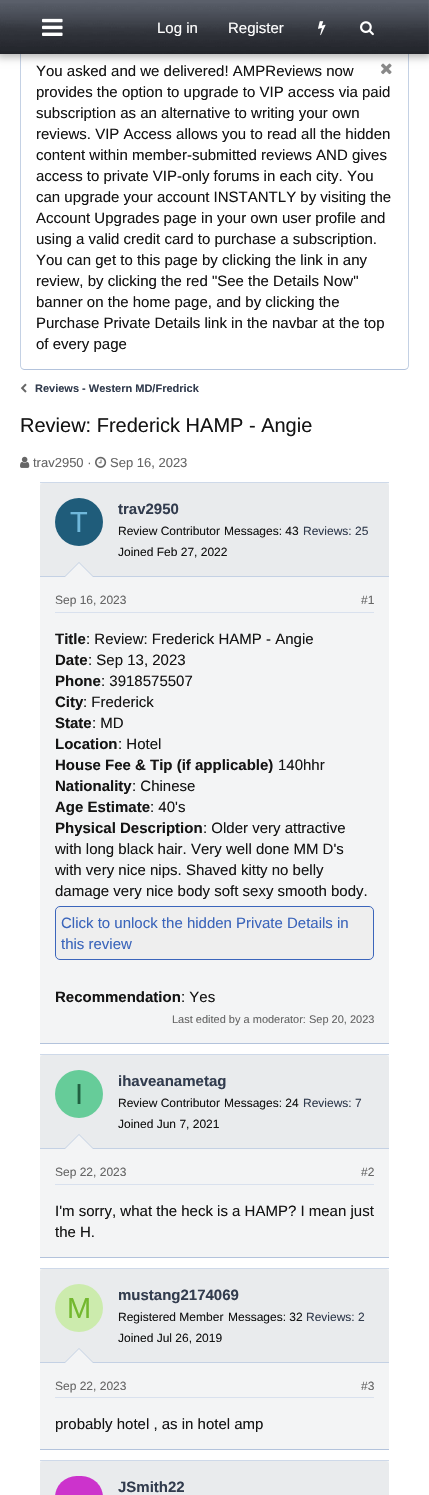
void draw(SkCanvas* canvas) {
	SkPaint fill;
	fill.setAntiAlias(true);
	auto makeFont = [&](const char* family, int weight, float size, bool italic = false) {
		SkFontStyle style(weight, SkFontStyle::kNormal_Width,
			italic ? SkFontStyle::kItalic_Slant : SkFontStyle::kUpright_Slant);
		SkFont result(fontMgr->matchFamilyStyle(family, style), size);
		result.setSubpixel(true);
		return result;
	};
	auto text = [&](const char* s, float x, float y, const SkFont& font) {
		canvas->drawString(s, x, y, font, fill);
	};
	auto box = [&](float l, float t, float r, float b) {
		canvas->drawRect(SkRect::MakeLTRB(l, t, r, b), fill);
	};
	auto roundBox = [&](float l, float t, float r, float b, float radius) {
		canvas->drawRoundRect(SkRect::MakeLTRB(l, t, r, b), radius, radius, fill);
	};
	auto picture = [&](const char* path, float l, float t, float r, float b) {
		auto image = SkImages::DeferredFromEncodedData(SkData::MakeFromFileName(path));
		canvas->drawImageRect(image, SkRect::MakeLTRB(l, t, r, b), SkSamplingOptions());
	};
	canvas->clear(0xFFFFFFFF);
	fill.setStyle(SkPaint::kStroke_Style);
	fill.setStrokeWidth(1);
	fill.setColor(0xFFC4D1E4);
	canvas->drawPath(SkPathBuilder().moveTo(407.5f, 45.5f).lineTo(408.5f, 48).lineTo(408.5f, 366).lineTo(407.5f, 368.5f).detach(), fill);
	fill.setColor(0xFFB3C3DC);
	canvas->drawPath(SkPathBuilder().moveTo(407.5f, 368.5f).lineTo(405, 369.5f).lineTo(24, 369.5f).lineTo(21.5f, 368.5f).detach(), fill);
	fill.setColor(0xFFC4D1E4);
	canvas->drawPath(SkPathBuilder().moveTo(21.5f, 368.5f).lineTo(20.5f, 366).lineTo(20.5f, 48).lineTo(21.5f, 45.5f).detach(), fill);
	picture("image4.png", 381, 63, 392, 75);
	fill.setStyle(SkPaint::kFill_Style);
	fill.setColor(0x4D000000);
	fill.setMaskFilter(SkMaskFilter::MakeBlur(kNormal_SkBlurStyle, 4));
	canvas->drawRect(SkRect::MakeLTRB(-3, -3, 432, 57), fill);
	fill.setMaskFilter(nullptr);
	picture("image0.png", 0, 0, 429, 54);
	picture("image1.png", 42, 18, 63, 36);
	picture("image2.png", 318, 21, 326, 36);
	picture("image3.png", 360, 21, 374, 36);
	picture("image5.png", 20, 383, 27, 393);
	picture("image6.png", 20, 456, 30, 468);
	picture("image7.png", 95, 456, 107, 468);
	fill.setColor(0xFFF3F4F5);
	box(40, 483, 389, 1043);
	fill.setColor(0xFFCED9E9);
	box(40, 482, 389, 483);
	fill.setColor(0xFFB3C3DC);
	box(40, 1043, 389, 1044);
	fill.setColor(0xFFE9EBED);
	canvas->drawPath(SkPathBuilder().moveTo(43, 483).lineTo(386, 483).cubicTo(387.5f, 483, 389, 484.5f, 389, 486).lineTo(389, 577).lineTo(40, 577).lineTo(40, 486).cubicTo(40, 484.5f, 41.5f, 483, 43, 483).close().detach(), fill);
	fill.setColor(0xFFC4D1E4);
	box(40, 576, 389, 577);
	fill.setColor(0xFF1F5C7A);
	canvas->drawCircle(79, 522, 24, fill);
	fill.setColor(0xFFC4D1E4);
	canvas->drawPath(SkPathBuilder().moveTo(94, 577).lineTo(64, 577).lineTo(79, 562).close().detach(), fill);
	fill.setColor(0xFFF3F4F5);
	canvas->drawPath(SkPathBuilder().moveTo(93, 577).lineTo(65, 577).lineTo(79, 563).close().detach(), fill);
	fill.setColor(0xFFD9E1EE);
	box(55, 612, 374, 613);
	fill.setColor(0xFFEEEEEE);
	canvas->drawRoundRect(SkRect::MakeLTRB(55.5f, 906.5f, 373.5f, 959.5f), 4.5f, 4.5f, fill);
	fill.setStyle(SkPaint::kStroke_Style);
	fill.setColor(0xFF3B65BB);
	canvas->drawRoundRect(SkRect::MakeLTRB(55.5f, 906.5f, 373.5f, 959.5f), 4.5f, 4.5f, fill);
	fill.setStyle(SkPaint::kFill_Style);
	fill.setColor(0xFFF3F4F5);
	box(40, 1055, 389, 1257);
	fill.setColor(0xFFCED9E9);
	box(40, 1054, 389, 1055);
	fill.setColor(0xFFB3C3DC);
	box(40, 1257, 389, 1258);
	fill.setColor(0xFFE9EBED);
	canvas->drawPath(SkPathBuilder().moveTo(43, 1055).lineTo(386, 1055).cubicTo(387.5f, 1055, 389, 1056.5f, 389, 1058).lineTo(389, 1149).lineTo(40, 1149).lineTo(40, 1058).cubicTo(40, 1056.5f, 41.5f, 1055, 43, 1055).close().detach(), fill);
	fill.setColor(0xFFC4D1E4);
	box(40, 1148, 389, 1149);
	fill.setColor(0xFF66CC99);
	canvas->drawCircle(79, 1094, 24, fill);
	fill.setColor(0xFFC4D1E4);
	canvas->drawPath(SkPathBuilder().moveTo(94, 1149).lineTo(64, 1149).lineTo(79, 1134).close().detach(), fill);
	fill.setColor(0xFFF3F4F5);
	canvas->drawPath(SkPathBuilder().moveTo(93, 1149).lineTo(65, 1149).lineTo(79, 1135).close().detach(), fill);
	fill.setColor(0xFFD9E1EE);
	box(55, 1184, 374, 1185);
	fill.setColor(0xFFF3F4F5);
	box(40, 1269, 389, 1449);
	fill.setColor(0xFFCED9E9);
	box(40, 1268, 389, 1269);
	fill.setColor(0xFFB3C3DC);
	box(40, 1449, 389, 1450);
	fill.setColor(0xFFE9EBED);
	canvas->drawPath(SkPathBuilder().moveTo(43, 1269).lineTo(386, 1269).cubicTo(387.5f, 1269, 389, 1270.5f, 389, 1272).lineTo(389, 1363).lineTo(40, 1363).lineTo(40, 1272).cubicTo(40, 1270.5f, 41.5f, 1269, 43, 1269).close().detach(), fill);
	fill.setColor(0xFFC4D1E4);
	box(40, 1362, 389, 1363);
	fill.setColor(0xFFCCEBAD);
	canvas->drawCircle(79, 1308, 24, fill);
	fill.setColor(0xFFC4D1E4);
	canvas->drawPath(SkPathBuilder().moveTo(94, 1363).lineTo(64, 1363).lineTo(79, 1348).close().detach(), fill);
	fill.setColor(0xFFF3F4F5);
	canvas->drawPath(SkPathBuilder().moveTo(93, 1363).lineTo(65, 1363).lineTo(79, 1349).close().detach(), fill);
	fill.setColor(0xFFD9E1EE);
	box(55, 1397, 374, 1398);
	fill.setColor(0xFFF3F4F5);
	box(40, 1461, 389, 1464);
	fill.setColor(0xFFCED9E9);
	box(40, 1460, 389, 1461);
	fill.setColor(0xFFE9EBED);
	canvas->drawPath(SkPathBuilder().moveTo(43, 1461).lineTo(386, 1461).cubicTo(387.5f, 1461, 389, 1462.5f, 389, 1464).lineTo(389, 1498).lineTo(40, 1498).lineTo(40, 1464).cubicTo(40, 1462.5f, 41.5f, 1461, 43, 1461).close().detach(), fill);
	fill.setColor(0xFFCC33CC);
	roundBox(55, 1476, 103, 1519, 24);
	auto font1 = makeFont("Liberation Sans", 400, 15);
	fill.setColor(0xFFFFFFFF);
	text("Log in", 157, 33, font1);
	text("Register", 228, 33, font1);
	fill.setColor(0xFF141414);
	text("You asked and we delivered! AMPReviews now", 36, 76, font1);
	text("provides the option to upgrade to VIP access via paid", 36, 97, font1);
	text("subscription as an alternative to writing your own", 36, 118, font1);
	text("reviews. VIP Access allows you to read all the hidden", 36, 139, font1);
	text("content within member-submitted reviews AND gives", 36, 160, font1);
	text("access to private VIP-only forums in each city. You", 36, 181, font1);
	text("can upgrade your account INSTANTLY by visiting the", 36, 202, font1);
	text("Account Upgrades page in your own user profile and", 36, 223, font1);
	text("using a valid credit card to purchase a subscription.", 36, 244, font1);
	text("You can get to this page by clicking the link in any", 36, 265, font1);
	text("review, by clicking the red \"See the Details Now\"", 36, 286, font1);
	text("banner on the home page, and by clicking the", 36, 307, font1);
	text("Purchase Private Details link in the navbar at the top", 36, 328, font1);
	text("of every page", 36, 349, font1);
	auto font2 = makeFont("Liberation Sans", 700, 11);
	fill.setColor(0xFF323C4E);
	text("Reviews - Western MD/Fredrick", 35, 392, font2);
	auto font3 = makeFont("Liberation Sans", 400, 20);
	fill.setColor(0xFF141414);
	text("Review: Frederick HAMP - Angie", 20, 432, font3);
	auto font4 = makeFont("Liberation Sans", 400, 13);
	fill.setColor(0xFF666666);
	text("trav2950 ·", 33, 467, font4);
	text("Sep 16, 2023", 110, 467, font4);
	auto font5 = makeFont("Liberation Sans", 400, 29);
	fill.setColor(0xFF70B8DB);
	text("T", 70, 532, font5);
	auto font6 = makeFont("Liberation Sans", 700, 15);
	fill.setColor(0xFF323C4E);
	text("trav2950", 118, 514, font6);
	auto font7 = makeFont("Liberation Sans", 400, 12);
	fill.setColor(0xFF141414);
	text("Review Contributor", 118, 535, font7);
	text("Messages: 43", 224, 535, font7);
	fill.setColor(0xFF323C4E);
	text("Reviews: 25", 303, 535, font7);
	fill.setColor(0xFF141414);
	text("Joined Feb 27, 2022", 118, 556, font7);
	fill.setColor(0xFF666666);
	text("Sep 16, 2023", 55, 604, font7);
	text("#1", 361, 604, font7);
	fill.setColor(0xFF141414);
	text("Title", 55, 644, font6);
	text(": Review: Frederick HAMP - Angie", 86, 644, font1);
	text("Date", 55, 665, font6);
	text(": Sep 13, 2023", 88, 665, font1);
	text("Phone", 55, 686, font6);
	text(": 3918575507", 101, 686, font1);
	text("City", 55, 707, font6);
	text(": Frederick", 83, 707, font1);
	text("State", 55, 728, font6);
	text(": MD", 92, 728, font1);
	text("Location", 55, 749, font6);
	text(": Hotel", 118, 749, font1);
	text("House Fee & Tip (if applicable)", 55, 770, font6);
	text("140hhr", 278, 770, font1);
	text("Nationality", 55, 791, font6);
	text(": Chinese", 132, 791, font1);
	text("Age Estimate", 55, 812, font6);
	text(": 40's", 150, 812, font1);
	text("Physical Description", 55, 833, font6);
	text(": Older very attractive", 203, 833, font1);
	text("with long black hair. Very well done MM D's", 55, 854, font1);
	text("with very nice nips. Shaved kitty no belly", 55, 875, font1);
	text("damage very nice body soft sexy smooth body.", 55, 896, font1);
	fill.setColor(0xFF3B65BB);
	text("Click to unlock the hidden Private Details in", 61, 928, font1);
	text("this review", 61, 949, font1);
	fill.setColor(0xFF141414);
	text("Recommendation", 55, 1002, font6);
	text(": Yes", 181, 1002, font1);
	auto font8 = makeFont("Liberation Sans", 400, 11);
	fill.setColor(0xFF666666);
	text("Last edited by a moderator: Sep 20, 2023", 172, 1023, font8);
	fill.setColor(0xFF206040);
	text("I", 75, 1104, font5);
	fill.setColor(0xFF323C4E);
	text("ihaveanametag", 118, 1086, font6);
	fill.setColor(0xFF141414);
	text("Review Contributor", 118, 1107, font7);
	text("Messages: 24", 224, 1107, font7);
	fill.setColor(0xFF323C4E);
	text("Reviews: 7", 303, 1107, font7);
	fill.setColor(0xFF141414);
	text("Joined Jun 7, 2021", 118, 1128, font7);
	fill.setColor(0xFF666666);
	text("Sep 22, 2023", 55, 1176, font7);
	text("#2", 361, 1176, font7);
	fill.setColor(0xFF141414);
	text("I'm sorry, what the heck is a HAMP? I mean just", 55, 1216, font1);
	text("the H.", 55, 1237, font1);
	fill.setColor(0xFF73B82E);
	text("M", 67, 1318, font5);
	fill.setColor(0xFF323C4E);
	text("mustang2174069", 118, 1300, font6);
	fill.setColor(0xFF141414);
	text("Registered Member", 118, 1321, font7);
	text("Messages: 32", 228, 1321, font7);
	fill.setColor(0xFF323C4E);
	text("Reviews: 2", 306, 1321, font7);
	fill.setColor(0xFF141414);
	text("Joined Jul 26, 2019", 118, 1342, font7);
	fill.setColor(0xFF666666);
	text("Sep 22, 2023", 55, 1390, font7);
	text("#3", 361, 1390, font7);
	fill.setColor(0xFF141414);
	text("probably hotel , as in hotel amp", 55, 1429, font1);
	fill.setColor(0xFF323C4E);
	text("JSmith22", 118, 1492, font6);
}
